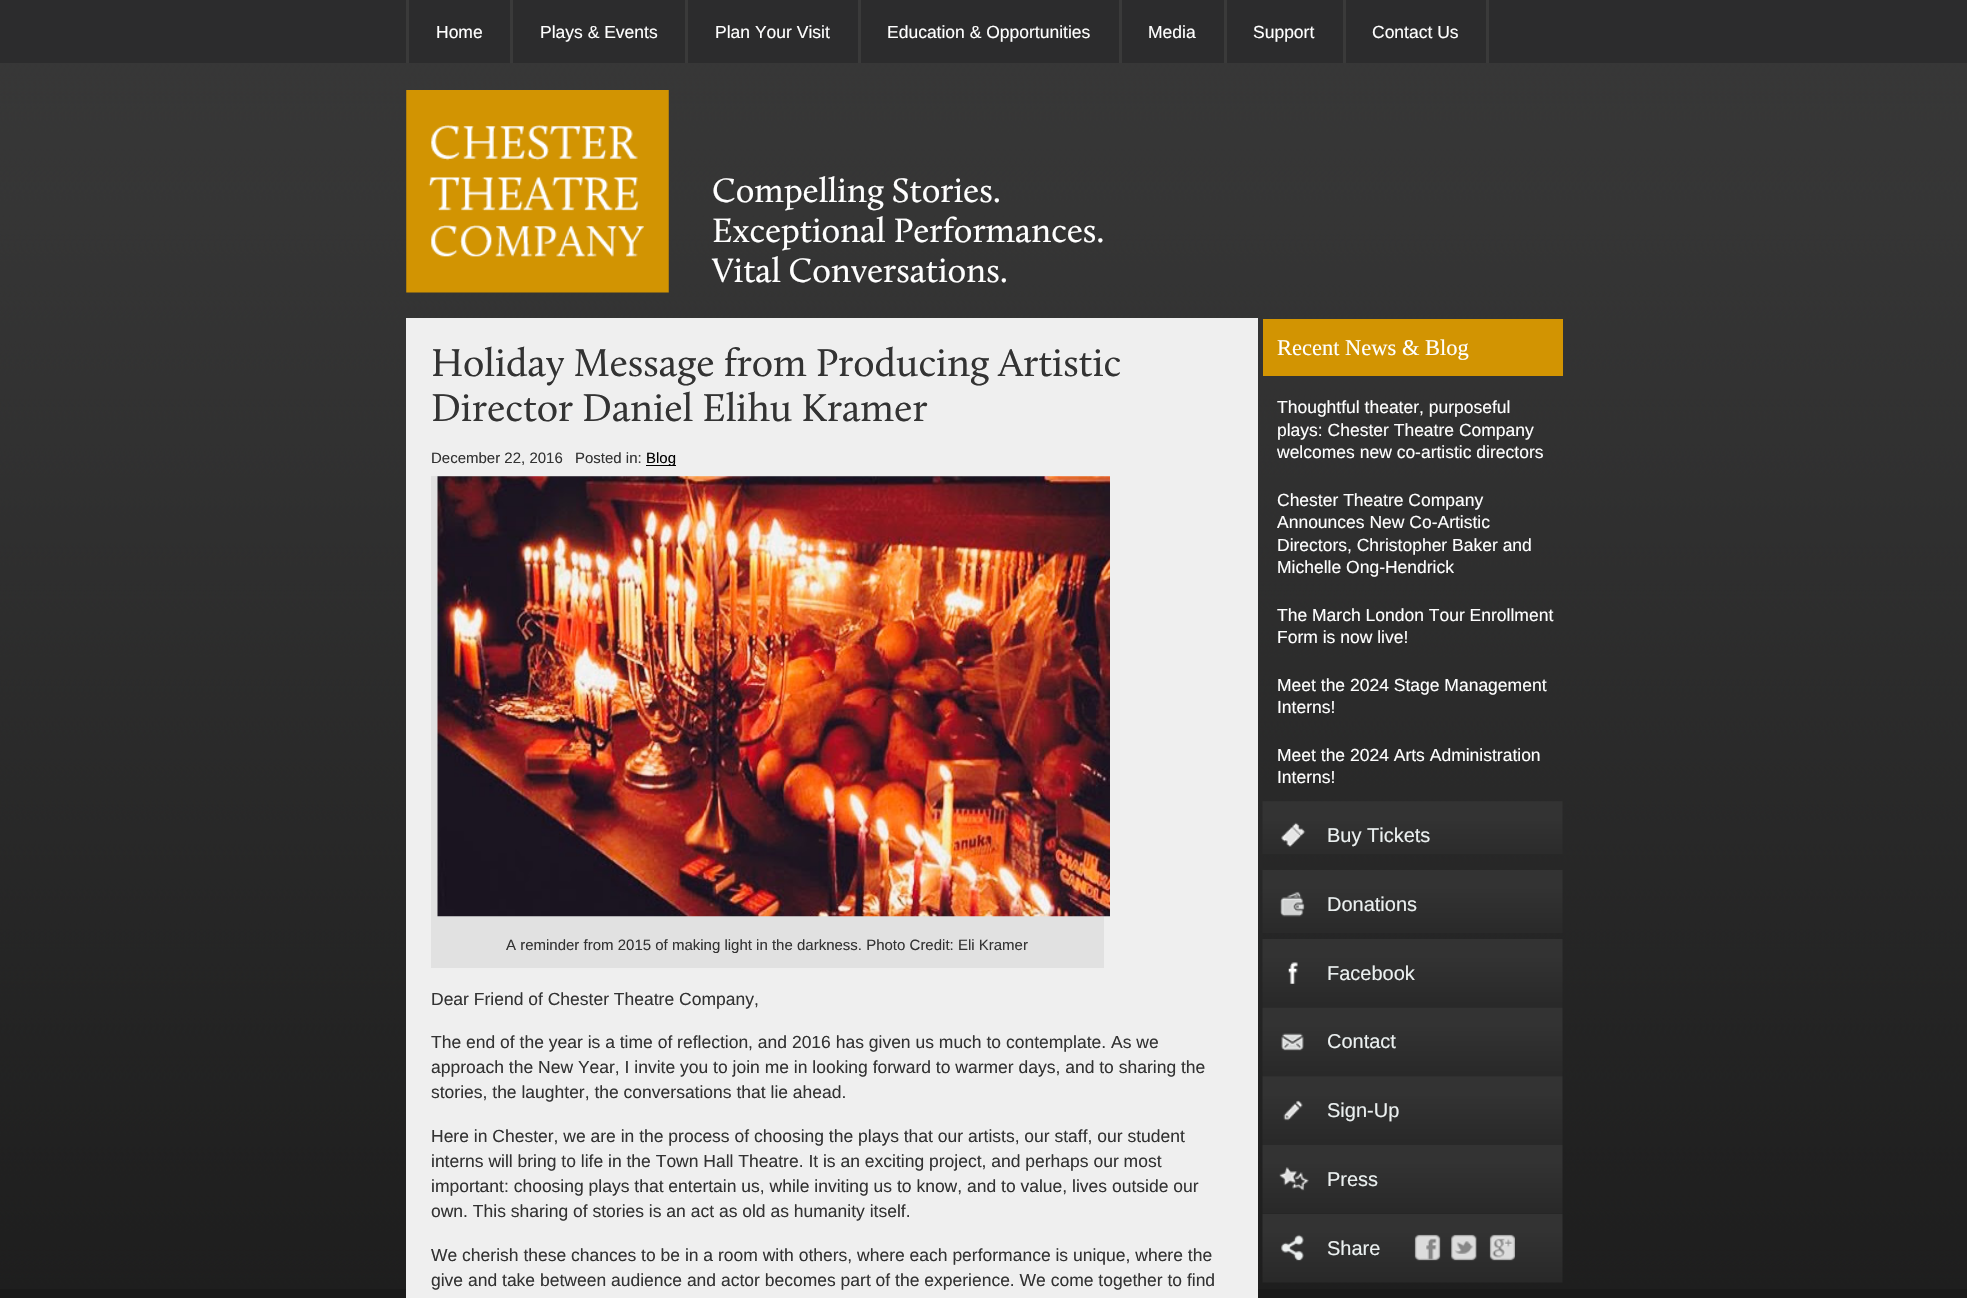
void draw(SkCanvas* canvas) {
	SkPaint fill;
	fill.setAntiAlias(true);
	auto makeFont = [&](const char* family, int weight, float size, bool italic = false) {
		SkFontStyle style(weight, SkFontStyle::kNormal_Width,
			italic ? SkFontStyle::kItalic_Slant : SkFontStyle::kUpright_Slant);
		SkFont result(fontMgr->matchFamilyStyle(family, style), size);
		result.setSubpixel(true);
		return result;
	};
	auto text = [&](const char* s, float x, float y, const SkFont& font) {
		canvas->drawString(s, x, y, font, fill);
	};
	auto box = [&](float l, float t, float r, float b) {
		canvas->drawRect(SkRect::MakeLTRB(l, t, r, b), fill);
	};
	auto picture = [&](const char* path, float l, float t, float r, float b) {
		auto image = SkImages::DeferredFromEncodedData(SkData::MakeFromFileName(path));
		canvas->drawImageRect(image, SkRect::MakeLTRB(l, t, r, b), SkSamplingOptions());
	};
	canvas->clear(0xFF1A1A1A);
	picture("image0.png", 0, 63, 1967, 1289);
	fill.setColor(0xFF2C2C2D);
	box(0, 0, 1967, 63);
	fill.setColor(0xFF3A3A3A);
	box(406, 0, 409, 63);
	box(510, 0, 513, 63);
	box(685, 0, 688, 63);
	box(858, 0, 861, 63);
	box(1119, 0, 1122, 63);
	box(1224, 0, 1227, 63);
	box(1343, 0, 1346, 63);
	box(1486, 0, 1489, 63);
	picture("image1.png", 406, 90, 669, 293);
	fill.setColor(0xFFEFEFEF);
	box(406, 318, 1258, 1298);
	fill.setColor(0xFF000000);
	box(646, 465, 676, 466);
	fill.setColor(0xFFE1E1E1);
	box(431, 476, 1104, 968);
	picture("image2.png", 437, 476, 1110, 917);
	fill.setColor(0xFFD29402);
	box(1263, 319, 1563, 376);
	picture("image3.png", 1262, 801, 1563, 854);
	picture("image4.png", 1281, 822, 1306, 847);
	picture("image5.png", 1262, 870, 1563, 933);
	picture("image6.png", 1280, 891, 1305, 917);
	picture("image7.png", 1262, 939, 1563, 1007);
	picture("image8.png", 1288, 962, 1298, 984);
	picture("image9.png", 1262, 1007, 1563, 1076);
	picture("image10.png", 1281, 1033, 1304, 1051);
	picture("image11.png", 1262, 1076, 1563, 1145);
	picture("image12.png", 1283, 1100, 1303, 1121);
	picture("image13.png", 1262, 1145, 1563, 1214);
	picture("image14.png", 1279, 1167, 1309, 1191);
	picture("image15.png", 1262, 1214, 1563, 1283);
	picture("image16.png", 1281, 1234, 1515, 1261);
	auto font1 = makeFont("Liberation Sans", 400, 17.5f);
	fill.setColor(0xFFFFFFFF);
	text("Home", 436, 38, font1);
	text("Plays & Events", 540, 38, font1);
	text("Plan Your Visit", 715, 38, font1);
	text("Education & Opportunities", 887, 38, font1);
	text("Media", 1148, 38, font1);
	text("Support", 1253, 38, font1);
	text("Contact Us", 1372, 38, font1);
	auto font2 = makeFont("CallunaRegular", 400, 35);
	text("Compelling Stories.", 712, 202, font2);
	text("Exceptional Performances.", 712, 242, font2);
	text("Vital Conversations.", 712, 282, font2);
	auto font3 = makeFont("CallunaRegular", 400, 40);
	fill.setColor(0xFF333333);
	text("Holiday Message from Producing Artistic", 431, 376, font3);
	text("Director Daniel Elihu Kramer", 431, 421, font3);
	auto font4 = makeFont("Liberation Sans", 400, 15);
	text("December 22, 2016", 431, 463, font4);
	text("Posted in:", 575, 463, font4);
	fill.setColor(0xFF000000);
	text("Blog", 646, 463, font4);
	fill.setColor(0xFF333333);
	text("A reminder from 2015 of making light in the darkness. Photo Credit: Eli Kramer", 506, 950, font4);
	text("Dear Friend of Chester Theatre Company,", 431, 1005, font1);
	text("The end of the year is a time of reflection, and 2016 has given us much to contemplate. As we", 431, 1048, font1);
	text("approach the New Year, I invite you to join me in looking forward to warmer days, and to sharing the", 431, 1073, font1);
	text("stories, the laughter, the conversations that lie ahead.", 431, 1098, font1);
	text("Here in Chester, we are in the process of choosing the plays that our artists, our staff, our student", 431, 1142, font1);
	text("interns will bring to life in the Town Hall Theatre. It is an exciting project, and perhaps our most", 431, 1167, font1);
	text("important: choosing plays that entertain us, while inviting us to know, and to value, lives outside our", 431, 1192, font1);
	text("own. This sharing of stories is an act as old as humanity itself.", 431, 1217, font1);
	text("We cherish these chances to be in a room with others, where each performance is unique, where the", 431, 1261, font1);
	text("give and take between audience and actor becomes part of the experience. We come together to find", 431, 1286, font1);
	auto font5 = makeFont("Liberation Serif", 400, 22.5f);
	fill.setColor(0xFFFFFFFF);
	text("Recent News & Blog", 1277, 355, font5);
	text("Thoughtful theater, purposeful", 1277, 413, font1);
	text("plays: Chester Theatre Company", 1277, 436, font1);
	text("welcomes new co-artistic directors", 1277, 458, font1);
	text("Chester Theatre Company", 1277, 506, font1);
	text("Announces New Co-Artistic", 1277, 528, font1);
	text("Directors, Christopher Baker and", 1277, 551, font1);
	text("Michelle Ong-Hendrick", 1277, 573, font1);
	text("The March London Tour Enrollment", 1277, 621, font1);
	text("Form is now live!", 1277, 643, font1);
	text("Meet the 2024 Stage Management", 1277, 691, font1);
	text("Interns!", 1277, 713, font1);
	text("Meet the 2024 Arts Administration", 1277, 761, font1);
	text("Interns!", 1277, 783, font1);
	auto font6 = makeFont("Liberation Sans", 400, 20);
	fill.setColor(0xFFEBF0F0);
	text("Buy Tickets", 1327, 842, font6);
	text("Donations", 1327, 911, font6);
	text("Facebook", 1327, 980, font6);
	text("Contact", 1327, 1048, font6);
	text("Sign-Up", 1327, 1117, font6);
	text("Press", 1327, 1186, font6);
	text("Share", 1327, 1255, font6);
}
